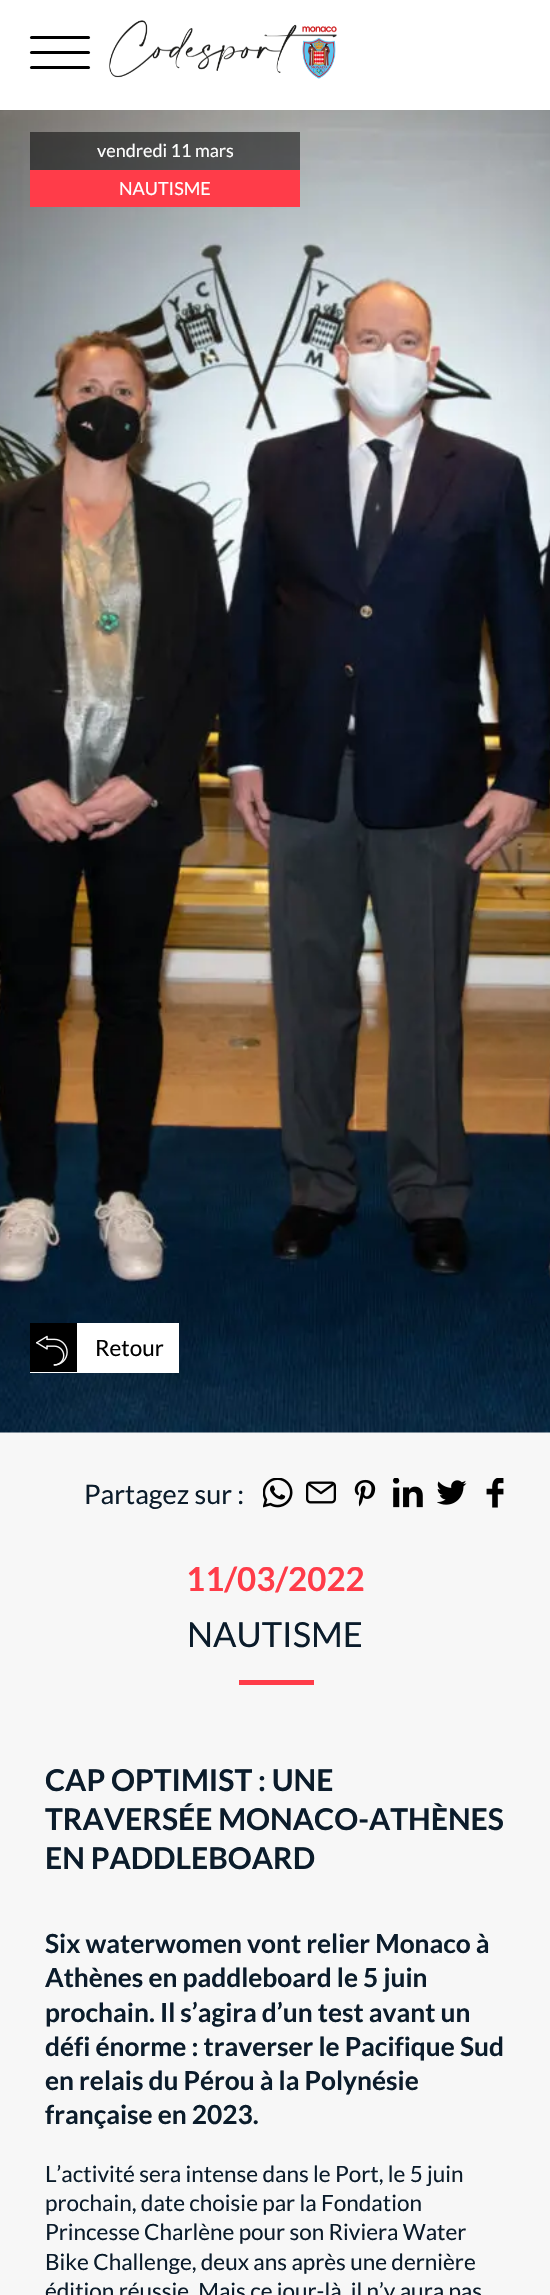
void draw(SkCanvas* canvas) {
	SkPaint fill;
	fill.setAntiAlias(true);
	auto makeFont = [&](const char* family, int weight, float size, bool italic = false) {
		SkFontStyle style(weight, SkFontStyle::kNormal_Width,
			italic ? SkFontStyle::kItalic_Slant : SkFontStyle::kUpright_Slant);
		SkFont result(fontMgr->matchFamilyStyle(family, style), size);
		result.setSubpixel(true);
		return result;
	};
	auto text = [&](const char* s, float x, float y, const SkFont& font) {
		canvas->drawString(s, x, y, font, fill);
	};
	auto box = [&](float l, float t, float r, float b) {
		canvas->drawRect(SkRect::MakeLTRB(l, t, r, b), fill);
	};
	auto roundBox = [&](float l, float t, float r, float b, float radius) {
		canvas->drawRoundRect(SkRect::MakeLTRB(l, t, r, b), radius, radius, fill);
	};
	auto picture = [&](const char* path, float l, float t, float r, float b) {
		auto image = SkImages::DeferredFromEncodedData(SkData::MakeFromFileName(path));
		canvas->drawImageRect(image, SkRect::MakeLTRB(l, t, r, b), SkSamplingOptions());
	};
	canvas->clear(0xFFF7F7F7);
	fill.setColor(0xFFFFFFFF);
	box(0, 0, 550, 110);
	fill.setColor(0xFF000000);
	roundBox(30, 36, 90, 39, 1.5f);
	roundBox(30, 51, 90, 54, 1.5f);
	roundBox(30, 66, 90, 69, 1.5f);
	picture("image0.png", 109, 20, 337, 79);
	picture("image1.png", 0, 110, 550, 1433);
	fill.setColor(0x85000000);
	box(30, 132, 300, 170);
	fill.setColor(0xFFFF3C49);
	box(30, 170, 300, 207);
	fill.setColor(0xFFFFFFFF);
	box(30, 1323, 179, 1373);
	picture("image2.png", 30, 1323, 77, 1372);
	picture("image3.png", 263, 1478, 293, 1508);
	picture("image4.png", 306, 1481, 336, 1504);
	picture("image5.png", 354, 1479, 376, 1507);
	picture("image6.png", 393, 1478, 423, 1508);
	picture("image7.png", 437, 1480, 467, 1505);
	picture("image8.png", 486, 1478, 504, 1508);
	fill.setColor(0xFFFF3C49);
	box(239, 1680, 314, 1685);
	auto font1 = makeFont("Lato", 400, 18);
	fill.setColor(0xFFFFFFFF);
	text("vendredi 11 mars", 97, 157, font1);
	text("NAUTISME", 119, 195, font1);
	auto font2 = makeFont("Lato", 400, 22.5f);
	fill.setColor(0xFF000000);
	text("Retour", 95, 1356, font2);
	auto font3 = makeFont("Lato", 400, 27);
	fill.setColor(0xFF0B1C2B);
	text("Partagez sur :", 84, 1504, font3);
	auto font4 = makeFont("Lato", 700, 33);
	fill.setColor(0xFFFF3C49);
	text("11/03/2022", 186, 1591, font4);
	auto font5 = makeFont("Lato", 400, 34.5f);
	fill.setColor(0xFF0B1C2B);
	text("NAUTISME", 187, 1647, font5);
	auto font6 = makeFont("Lato", 700, 30);
	text("CAP OPTIMIST : UNE", 45, 1791, font6);
	text("TRAVERSÉE MONACO-ATHÈNES", 45, 1830, font6);
	text("EN PADDLEBOARD", 45, 1869, font6);
	auto font7 = makeFont("Lato", 700, 26.3f);
	text("Six waterwomen vont relier Monaco à", 45, 1953, font7);
	text("Athènes en paddleboard le 5 juin", 45, 1987, font7);
	text("prochain. Il s’agira d’un test avant un", 45, 2022, font7);
	text("défi énorme : traverser le Pacifique Sud", 45, 2056, font7);
	text("en relais du Pérou à la Polynésie", 45, 2090, font7);
	text("française en 2023.", 45, 2124, font7);
	text("L’activité sera intense dans le Port, le 5 juin", 45, 2182, font2);
	text("prochain, date choisie par la Fondation", 45, 2211, font2);
	text("Princesse Charlène pour son Riviera Water", 45, 2240, font2);
	text("Bike Challenge, deux ans après une dernière", 45, 2270, font2);
	text("édition réussie. Mais ce jour-là, il n’y aura pas", 45, 2299, font2);
}
